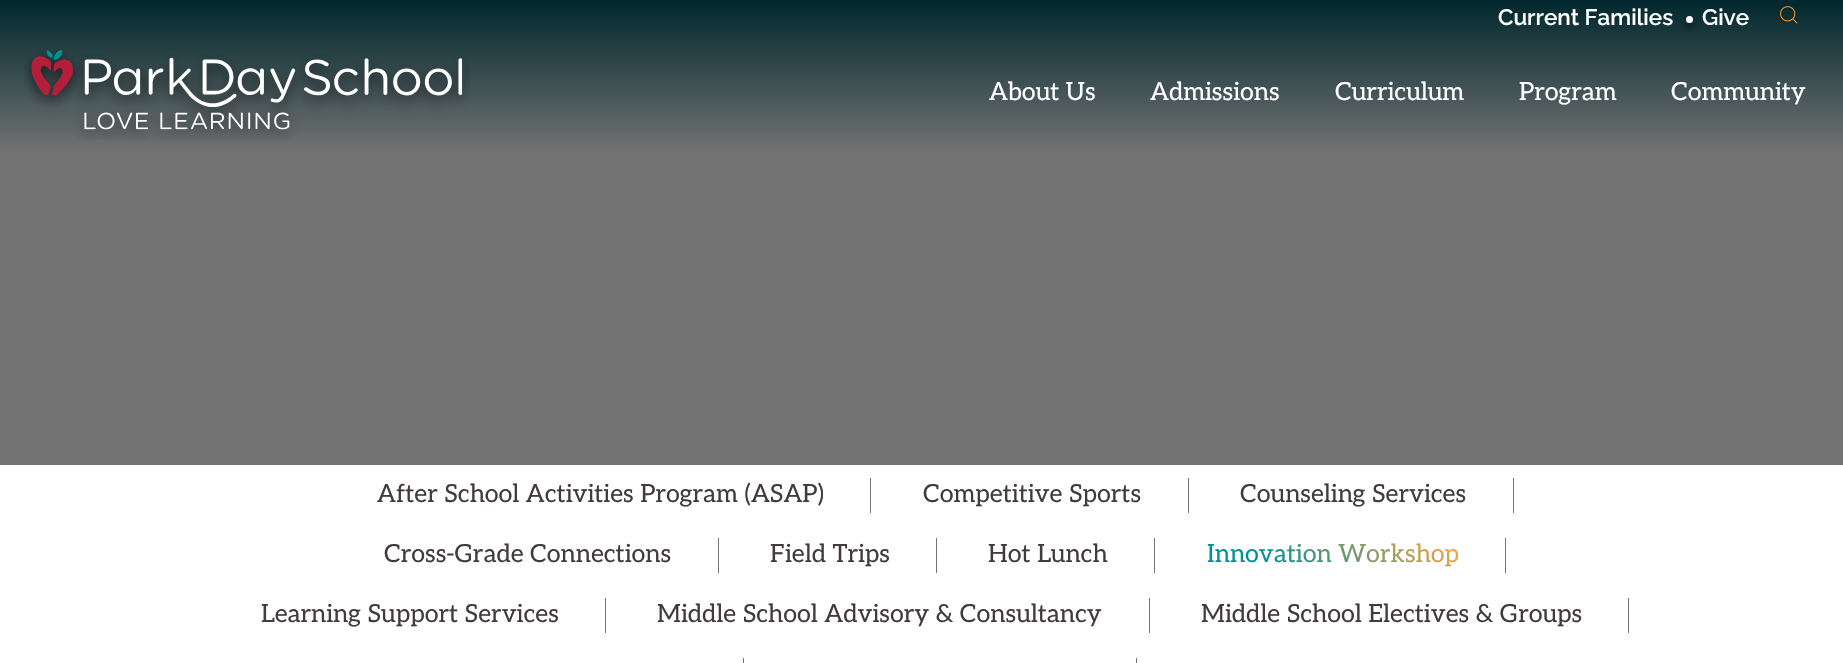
void draw(SkCanvas* canvas) {
	SkPaint fill;
	fill.setAntiAlias(true);
	auto makeFont = [&](const char* family, int weight, float size, bool italic = false) {
		SkFontStyle style(weight, SkFontStyle::kNormal_Width,
			italic ? SkFontStyle::kItalic_Slant : SkFontStyle::kUpright_Slant);
		SkFont result(fontMgr->matchFamilyStyle(family, style), size);
		result.setSubpixel(true);
		return result;
	};
	auto text = [&](const char* s, float x, float y, const SkFont& font) {
		canvas->drawString(s, x, y, font, fill);
	};
	auto box = [&](float l, float t, float r, float b) {
		canvas->drawRect(SkRect::MakeLTRB(l, t, r, b), fill);
	};
	auto picture = [&](const char* path, float l, float t, float r, float b) {
		auto image = SkImages::DeferredFromEncodedData(SkData::MakeFromFileName(path));
		canvas->drawImageRect(image, SkRect::MakeLTRB(l, t, r, b), SkSamplingOptions());
	};
	canvas->clear(0xFFFFFFFF);
	fill.setColor(0xFF737373);
	box(0, 154, 1843, 465);
	{
		const SkColor colors[] = {0xFF00272D, 0xFF737373};
		const float stops[] = {0, 1};
		const SkPoint ends[] = {{922, 0}, {922, 154}};
		fill.setShader(SkGradientShader::MakeLinear(ends, colors, stops, 2, SkTileMode::kClamp));
		fill.setAlpha(255);
	}
	box(0, 0, 1843, 154);
	fill.setShader(nullptr);
	fill.setColor(0x9E000000);
	fill.setMaskFilter(SkMaskFilter::MakeBlur(kNormal_SkBlurStyle, 3));
	canvas->drawRoundRect(SkRect::MakeLTRB(1686, 21, 1693, 28), 3.5f, 3.5f, fill);
	fill.setMaskFilter(nullptr);
	fill.setColor(0xFFFFFFFF);
	canvas->drawCircle(1689.5f, 19.5f, 3.5f, fill);
	picture("image0.png", 1780, 6, 1798, 24);
	picture("image1.png", 24, 50, 470, 140);
	fill.setColor(0xFF737373);
	box(870, 478, 871, 513);
	box(1188, 478, 1189, 513);
	box(1513, 478, 1514, 513);
	box(718, 538, 719, 573);
	box(936, 538, 937, 573);
	box(1154, 538, 1155, 573);
	box(1505, 538, 1506, 573);
	box(605, 598, 606, 633);
	box(1149, 598, 1150, 633);
	box(1628, 598, 1629, 633);
	box(743, 658, 744, 663);
	box(1136, 658, 1137, 663);
	auto font1 = makeFont("Raleway", 600, 22.5f);
	fill.setColor(0xFFFFFFFF);
	text("Current Families", 1498, 25, font1);
	text("Give", 1702, 25, font1);
	auto font2 = makeFont("Aleo", 400, 25);
	text("About Us", 989, 100, font2);
	text("Admissions", 1150, 100, font2);
	text("Curriculum", 1335, 100, font2);
	text("Program", 1519, 100, font2);
	text("Community", 1671, 100, font2);
	fill.setColor(0xFF433A3C);
	text("After School Activities Program (ASAP)", 377, 502, font2);
	text("Competitive Sports", 923, 502, font2);
	text("Counseling Services", 1240, 502, font2);
	text("Cross-Grade Connections", 384, 562, font2);
	text("Field Trips", 770, 562, font2);
	text("Hot Lunch", 988, 562, font2);
	{
		const SkColor colors[] = {0xFF009196, 0xFFFFA342};
		const float stops[] = {0.24f, 0.97f};
		const SkPoint ends[] = {{1279, 625}, {1386, 484}};
		fill.setShader(SkGradientShader::MakeLinear(ends, colors, stops, 2, SkTileMode::kClamp));
		fill.setAlpha(255);
	}
	text("Innovation Workshop", 1207, 562, font2);
	fill.setShader(nullptr);
	fill.setColor(0xFF433A3C);
	text("Learning Support Services", 261, 622, font2);
	text("Middle School Advisory & Consultancy", 657, 622, font2);
	text("Middle School Electives & Groups", 1201, 622, font2);
}
